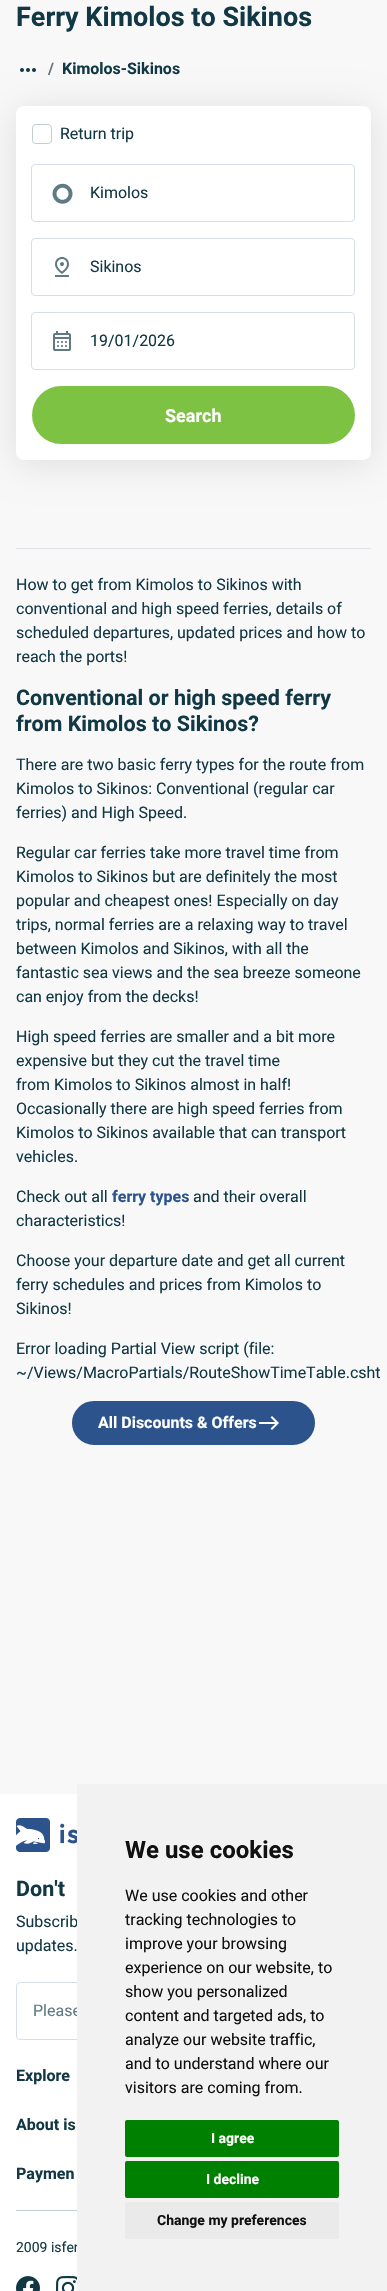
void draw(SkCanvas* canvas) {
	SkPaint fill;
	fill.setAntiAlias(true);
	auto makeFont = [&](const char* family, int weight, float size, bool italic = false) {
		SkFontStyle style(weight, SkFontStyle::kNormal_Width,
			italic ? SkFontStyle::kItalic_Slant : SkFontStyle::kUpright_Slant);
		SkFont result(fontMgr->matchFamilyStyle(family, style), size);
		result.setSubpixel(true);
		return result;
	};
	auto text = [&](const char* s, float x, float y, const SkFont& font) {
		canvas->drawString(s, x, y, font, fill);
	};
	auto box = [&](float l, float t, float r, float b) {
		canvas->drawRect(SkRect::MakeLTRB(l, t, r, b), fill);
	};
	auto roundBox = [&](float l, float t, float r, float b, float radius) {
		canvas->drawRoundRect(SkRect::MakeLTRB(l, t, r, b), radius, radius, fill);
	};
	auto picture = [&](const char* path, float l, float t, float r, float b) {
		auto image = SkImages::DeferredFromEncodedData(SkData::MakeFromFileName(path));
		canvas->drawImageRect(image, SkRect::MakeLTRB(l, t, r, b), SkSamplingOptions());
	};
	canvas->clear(0xFFF8F8F8);
	picture("image0.png", 20, 68, 36, 72);
	fill.setColor(0x1A000000);
	fill.setMaskFilter(SkMaskFilter::MakeBlur(kNormal_SkBlurStyle, 17.5f));
	canvas->drawRoundRect(SkRect::MakeLTRB(16, 110, 371, 464), 8, 8, fill);
	fill.setMaskFilter(nullptr);
	fill.setColor(0xFFFFFFFF);
	roundBox(16, 106, 371, 460, 8);
	fill.setStyle(SkPaint::kStroke_Style);
	fill.setStrokeWidth(1);
	fill.setColor(0xFFC4CDD1);
	canvas->drawRoundRect(SkRect::MakeLTRB(32.5f, 124.5f, 51.5f, 143.5f), 3.5f, 3.5f, fill);
	fill.setColor(0xFFD5DFE9);
	canvas->drawRoundRect(SkRect::MakeLTRB(31.5f, 164.5f, 354.5f, 221.5f), 3.5f, 3.5f, fill);
	picture("image1.png", 52, 183, 73, 204);
	canvas->drawRoundRect(SkRect::MakeLTRB(31.5f, 238.5f, 354.5f, 295.5f), 3.5f, 3.5f, fill);
	picture("image2.png", 55, 257, 69, 277);
	canvas->drawRoundRect(SkRect::MakeLTRB(31.5f, 312.5f, 354.5f, 369.5f), 3.5f, 3.5f, fill);
	picture("image3.png", 53, 331, 71, 351);
	fill.setStyle(SkPaint::kFill_Style);
	fill.setColor(0xFF7DC243);
	roundBox(32, 386, 355, 444, 29);
	fill.setColor(0xFFDEE2E6);
	box(16, 548, 371, 549);
	fill.setColor(0xFF2C538C);
	canvas->drawRoundRect(SkRect::MakeLTRB(73, 1402, 314, 1444), 21, 21, fill);
	fill.setStyle(SkPaint::kStroke_Style);
	fill.setStrokeWidth(2);
	canvas->drawRoundRect(SkRect::MakeLTRB(73, 1402, 314, 1444), 21, 21, fill);
	picture("image4.png", 259, 1416, 279, 1430);
	fill.setStyle(SkPaint::kFill_Style);
	fill.setColor(0xFFFFFFFF);
	box(0, 1794, 77, 2291);
	picture("image5.png", 16, 1818, 77, 1852);
	fill.setStyle(SkPaint::kStroke_Style);
	fill.setStrokeWidth(1);
	fill.setColor(0xFFD5DFE9);
	canvas->drawRoundRect(SkRect::MakeLTRB(16.5f, 1982.5f, 370.5f, 2039.5f), 3.5f, 3.5f, fill);
	fill.setStyle(SkPaint::kFill_Style);
	fill.setColor(0xFFC4CDD1);
	box(16, 2210, 77, 2211);
	picture("image6.png", 16, 2276, 40, 2291);
	picture("image7.png", 56, 2276, 77, 2291);
	auto font1 = makeFont("Roboto", 700, 27);
	fill.setColor(0xFF123846);
	text("Ferry Kimolos to Sikinos", 16, 26, font1);
	auto font2 = makeFont("Roboto", 700, 16);
	fill.setColor(0xFF6C757D);
	text("/", 48, 74, font2);
	fill.setColor(0xFF123846);
	text("Kimolos-Sikinos", 62, 74, font2);
	auto font3 = makeFont("Roboto", 400, 16);
	text("Return trip", 60, 139, font3);
	text("Kimolos", 90, 198, font3);
	text("Sikinos", 90, 272, font3);
	text("19/01/2026", 90, 346, font3);
	auto font4 = makeFont("Roboto", 700, 18);
	fill.setColor(0xFFFFFFFF);
	text("Search", 165, 422, font4);
	fill.setColor(0xFF123846);
	text("How to get from Kimolos to Sikinos with", 16, 590, font3);
	text("conventional and high speed ferries, details of", 16, 614, font3);
	text("scheduled departures, updated prices and how to", 16, 638, font3);
	text("reach the ports!", 16, 662, font3);
	auto font5 = makeFont("Roboto", 700, 21.5f);
	text("Conventional or high speed ferry", 16, 705, font5);
	text("from Kimolos to Sikinos?", 16, 731, font5);
	text("There are two basic ferry types for the route from", 16, 770, font3);
	text("Kimolos to Sikinos: Conventional (regular car", 16, 794, font3);
	text("ferries) and High Speed.", 16, 818, font3);
	text("Regular car ferries take more travel time from", 16, 858, font3);
	text("Kimolos to Sikinos but are definitely the most", 16, 882, font3);
	text("popular and cheapest ones! Especially on day", 16, 906, font3);
	text("trips, normal ferries are a relaxing way to travel", 16, 930, font3);
	text("between Kimolos and Sikinos, with all the", 16, 954, font3);
	text("fantastic sea views and the sea breeze someone", 16, 978, font3);
	text("can enjoy from the decks!", 16, 1002, font3);
	text("High speed ferries are smaller and a bit more", 16, 1042, font3);
	text("expensive but they cut the travel time", 16, 1066, font3);
	text("from Kimolos to Sikinos almost in half!", 16, 1090, font3);
	text("Occasionally there are high speed ferries from", 16, 1114, font3);
	text("Kimolos to Sikinos available that can transport", 16, 1138, font3);
	text("vehicles.", 16, 1162, font3);
	text("Check out all", 16, 1202, font3);
	fill.setColor(0xFF2C538C);
	text("ferry types", 112, 1202, font2);
	fill.setColor(0xFF123846);
	text("and their overall", 193, 1202, font3);
	text("characteristics!", 16, 1226, font3);
	text("Choose your departure date and get all current", 16, 1266, font3);
	text("ferry schedules and prices from Kimolos to", 16, 1290, font3);
	text("Sikinos!", 16, 1314, font3);
	text("Error loading Partial View script (file:", 16, 1354, font3);
	text("~/Views/MacroPartials/RouteShowTimeTable.csht", 16, 1378, font3);
	fill.setColor(0xFFFFFFFF);
	text("All Discounts & Offers", 98, 1428, font2);
	fill.setColor(0xFF123846);
	text("Don't", 16, 1896, font5);
	text("Subscrib", 16, 1927, font3);
	text("updates.", 16, 1951, font3);
	fill.setColor(0xFF607A83);
	text("Please", 33, 2016, font3);
	fill.setColor(0xFF123846);
	text("Explore", 16, 2081, font2);
	text("About is", 16, 2130, font2);
	text("Paymen", 16, 2179, font2);
	auto font6 = makeFont("Roboto", 400, 14);
	text("2009 isfer", 16, 2252, font6);
	fill.setColor(0xFFF2F2F2);
	box(77, 1784, 387, 2291);
	auto font7 = makeFont("Roboto", 700, 24);
	fill.setColor(0xFF111111);
	text("We use cookies", 125, 1858, font7);
	text("We use cookies and other", 125, 1901, font3);
	text("tracking technologies to", 125, 1925, font3);
	text("improve your browsing", 125, 1949, font3);
	text("experience on our website, to", 125, 1973, font3);
	text("show you personalized", 125, 1997, font3);
	text("content and targeted ads, to", 125, 2021, font3);
	text("analyze our website traffic,", 125, 2045, font3);
	text("and to understand where our", 125, 2069, font3);
	text("visitors are coming from.", 125, 2093, font3);
	fill.setColor(0xFF008000);
	roundBox(125, 2120, 339, 2157, 2);
	auto font8 = makeFont("Roboto", 700, 14);
	fill.setColor(0xFFFFFFFF);
	text("I agree", 211, 2143, font8);
	fill.setColor(0xFF008000);
	roundBox(125, 2161, 339, 2198, 2);
	fill.setColor(0xFFFFFFFF);
	text("I decline", 206, 2184, font8);
	fill.setColor(0xFFEAEAEA);
	roundBox(125, 2202, 339, 2239, 2);
	fill.setColor(0xFF111111);
	text("Change my preferences", 157, 2225, font8);
}
